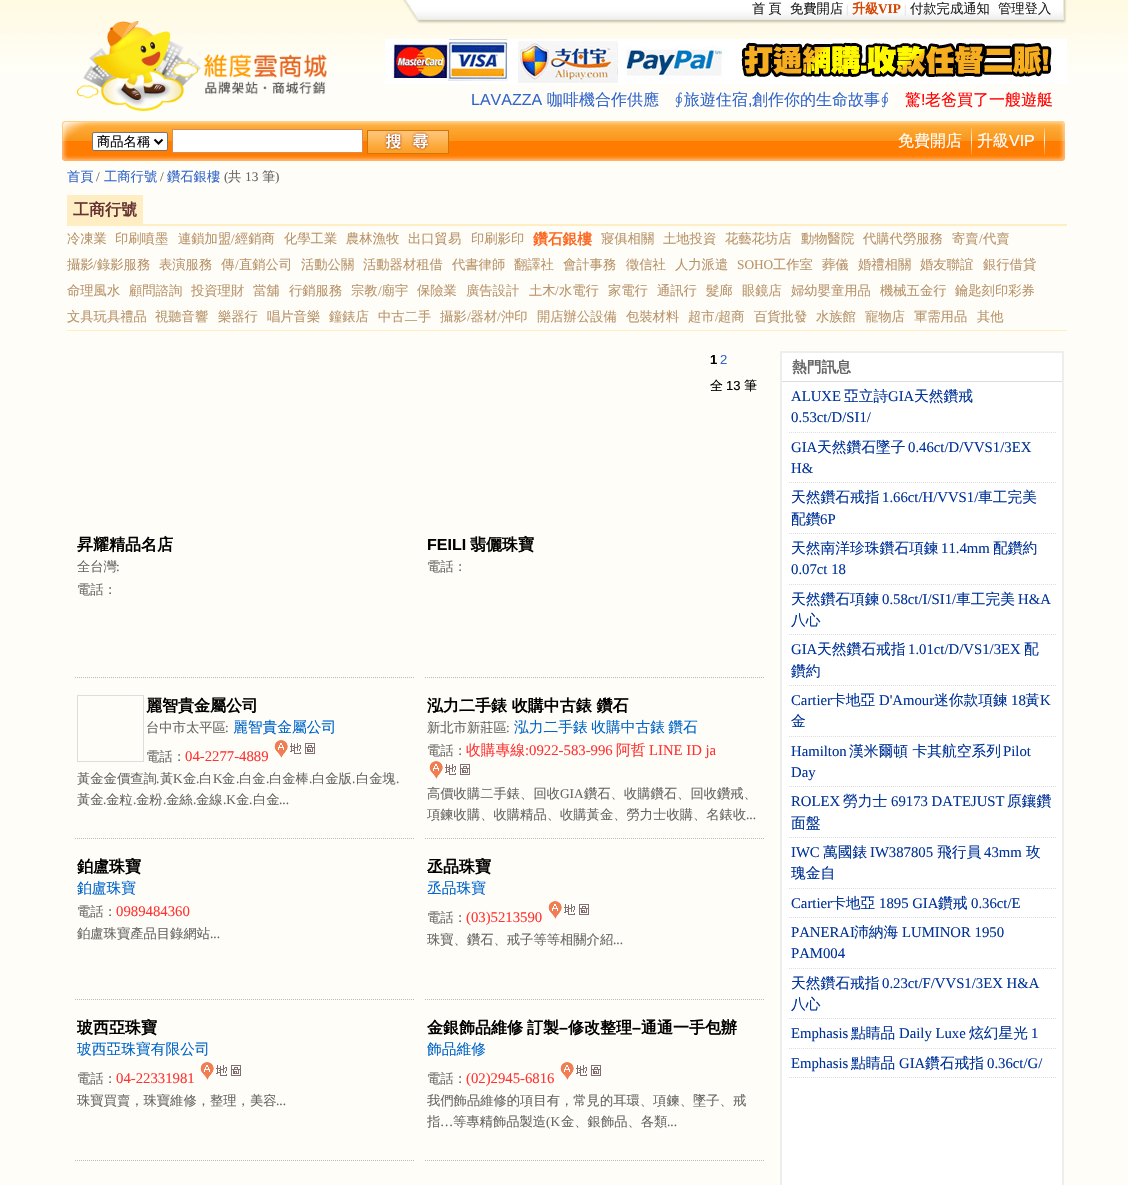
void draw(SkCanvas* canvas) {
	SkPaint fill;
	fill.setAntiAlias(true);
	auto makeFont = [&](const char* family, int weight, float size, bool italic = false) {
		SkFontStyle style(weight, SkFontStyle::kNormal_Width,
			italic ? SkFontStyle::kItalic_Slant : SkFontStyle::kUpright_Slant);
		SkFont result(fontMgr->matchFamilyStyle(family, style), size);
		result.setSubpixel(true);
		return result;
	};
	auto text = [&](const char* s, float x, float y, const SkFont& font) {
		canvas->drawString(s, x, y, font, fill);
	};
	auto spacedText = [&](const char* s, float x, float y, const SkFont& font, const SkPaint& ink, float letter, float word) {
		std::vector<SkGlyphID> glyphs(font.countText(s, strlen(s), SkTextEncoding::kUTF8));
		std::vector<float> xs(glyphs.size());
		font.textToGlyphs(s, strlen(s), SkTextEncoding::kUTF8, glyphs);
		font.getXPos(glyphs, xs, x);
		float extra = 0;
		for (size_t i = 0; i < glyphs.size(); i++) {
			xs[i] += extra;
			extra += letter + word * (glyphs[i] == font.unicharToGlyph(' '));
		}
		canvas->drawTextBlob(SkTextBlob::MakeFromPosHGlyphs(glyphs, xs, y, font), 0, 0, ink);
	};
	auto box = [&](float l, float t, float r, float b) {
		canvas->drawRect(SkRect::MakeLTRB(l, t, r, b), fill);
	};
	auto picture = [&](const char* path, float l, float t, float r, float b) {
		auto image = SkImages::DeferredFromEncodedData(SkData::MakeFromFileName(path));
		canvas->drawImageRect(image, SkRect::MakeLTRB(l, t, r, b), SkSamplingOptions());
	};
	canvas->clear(0xFFFFFDF7);
	picture("image0.png", 0, 0, 1128, 72);
	picture("image1.png", 403, 0, 1067, 24);
	picture("image2.png", 77, 21, 327, 111);
	picture("image3.png", 385, 39, 1067, 84);
	picture("image4.png", 62, 121, 1065, 161);
	fill.setColor(0xFFFFFFFF);
	canvas->drawRoundRect(SkRect::MakeLTRB(92.5f, 132.5f, 167.5f, 150.5f), 1.5f, 1.5f, fill);
	fill.setStyle(SkPaint::kStroke_Style);
	fill.setStrokeWidth(1);
	fill.setColor(0xFF767676);
	canvas->drawRoundRect(SkRect::MakeLTRB(92.5f, 132.5f, 167.5f, 150.5f), 1.5f, 1.5f, fill);
	fill.setStrokeWidth(2);
	fill.setColor(0xFF000000);
	canvas->drawPath(SkPathBuilder().moveTo(154.5f, 139.5f).lineTo(158.5f, 143.5f).lineTo(162.5f, 139.5f).detach(), fill);
	fill.setStyle(SkPaint::kFill_Style);
	fill.setColor(0xFFFFFFFF);
	canvas->drawRect(SkRect::MakeLTRB(172.5f, 129.5f, 362.5f, 152.5f), fill);
	fill.setStyle(SkPaint::kStroke_Style);
	fill.setStrokeWidth(1);
	fill.setColor(0xFFDC8A58);
	canvas->drawRect(SkRect::MakeLTRB(172.5f, 129.5f, 362.5f, 152.5f), fill);
	picture("image5.png", 367, 130, 449, 154);
	picture("image6.png", 971, 127, 972, 155);
	picture("image6.png", 1044, 127, 1045, 155);
	fill.setStyle(SkPaint::kFill_Style);
	fill.setColor(0xFFFFEDC4);
	box(67, 330, 1067, 331);
	box(67, 224, 1067, 226);
	box(67, 195, 143, 224);
	fill.setStyle(SkPaint::kStroke_Style);
	fill.setColor(0xFFBBBBBB);
	fill.setPathEffect(SkDashPathEffect::Make({{1, 1}}, 0));
	canvas->drawPath(SkPathBuilder().moveTo(73, 677.5f).lineTo(415, 677.5f).detach(), fill);
	fill.setPathEffect(nullptr);
	fill.setStyle(SkPaint::kFill_Style);
	fill.setColor(0xFFFFFDF7);
	box(73, 677, 74, 678);
	fill.setStyle(SkPaint::kStroke_Style);
	fill.setColor(0xFFBBBBBB);
	fill.setPathEffect(SkDashPathEffect::Make({{1, 1}}, 0));
	canvas->drawPath(SkPathBuilder().moveTo(423, 677.5f).lineTo(765, 677.5f).detach(), fill);
	fill.setPathEffect(nullptr);
	fill.setStyle(SkPaint::kFill_Style);
	fill.setColor(0xFFFFFDF7);
	box(423, 677, 424, 678);
	fill.setStyle(SkPaint::kStroke_Style);
	fill.setColor(0xFFBBBBBB);
	fill.setPathEffect(SkDashPathEffect::Make({{1, 1}}, 0));
	canvas->drawPath(SkPathBuilder().moveTo(73, 838.5f).lineTo(415, 838.5f).detach(), fill);
	fill.setPathEffect(nullptr);
	fill.setStyle(SkPaint::kFill_Style);
	fill.setColor(0xFFFFFDF7);
	box(73, 838, 74, 839);
	fill.setStyle(SkPaint::kStroke_Style);
	fill.setColor(0xFFDDDDDD);
	canvas->drawRect(SkRect::MakeLTRB(77.5f, 695.5f, 143.5f, 761.5f), fill);
	fill.setStyle(SkPaint::kFill_Style);
	fill.setColor(0xFFFFFEFA);
	box(272, 760, 325, 761);
	picture("image7.png", 274, 740, 315, 758);
	fill.setStyle(SkPaint::kStroke_Style);
	fill.setColor(0xFFBBBBBB);
	fill.setPathEffect(SkDashPathEffect::Make({{1, 1}}, 0));
	canvas->drawPath(SkPathBuilder().moveTo(423, 838.5f).lineTo(765, 838.5f).detach(), fill);
	fill.setPathEffect(nullptr);
	fill.setStyle(SkPaint::kFill_Style);
	fill.setColor(0xFFFFFDF7);
	box(423, 838, 424, 839);
	fill.setColor(0xFFFFFEFA);
	box(427, 781, 480, 782);
	picture("image7.png", 429, 761, 470, 779);
	fill.setStyle(SkPaint::kStroke_Style);
	fill.setColor(0xFFBBBBBB);
	fill.setPathEffect(SkDashPathEffect::Make({{1, 1}}, 0));
	canvas->drawPath(SkPathBuilder().moveTo(73, 999.5f).lineTo(415, 999.5f).detach(), fill);
	fill.setPathEffect(nullptr);
	fill.setStyle(SkPaint::kFill_Style);
	fill.setColor(0xFFFFFDF7);
	box(73, 999, 74, 1000);
	fill.setStyle(SkPaint::kStroke_Style);
	fill.setColor(0xFFBBBBBB);
	fill.setPathEffect(SkDashPathEffect::Make({{1, 1}}, 0));
	canvas->drawPath(SkPathBuilder().moveTo(423, 999.5f).lineTo(765, 999.5f).detach(), fill);
	fill.setPathEffect(nullptr);
	fill.setStyle(SkPaint::kFill_Style);
	fill.setColor(0xFFFFFDF7);
	box(423, 999, 424, 1000);
	fill.setColor(0xFFFFFEFA);
	box(546, 921, 599, 922);
	picture("image7.png", 548, 901, 589, 919);
	fill.setStyle(SkPaint::kStroke_Style);
	fill.setColor(0xFFBBBBBB);
	fill.setPathEffect(SkDashPathEffect::Make({{1, 1}}, 0));
	canvas->drawPath(SkPathBuilder().moveTo(73, 1160.5f).lineTo(415, 1160.5f).detach(), fill);
	fill.setPathEffect(nullptr);
	fill.setStyle(SkPaint::kFill_Style);
	fill.setColor(0xFFFFFDF7);
	box(73, 1160, 74, 1161);
	fill.setColor(0xFFFFFEFA);
	box(198, 1082, 251, 1083);
	picture("image7.png", 200, 1062, 241, 1080);
	fill.setStyle(SkPaint::kStroke_Style);
	fill.setColor(0xFFBBBBBB);
	fill.setPathEffect(SkDashPathEffect::Make({{1, 1}}, 0));
	canvas->drawPath(SkPathBuilder().moveTo(423, 1160.5f).lineTo(765, 1160.5f).detach(), fill);
	fill.setPathEffect(nullptr);
	fill.setStyle(SkPaint::kFill_Style);
	fill.setColor(0xFFFFFDF7);
	box(423, 1160, 424, 1161);
	fill.setColor(0xFFFFFEFA);
	box(558, 1082, 611, 1083);
	picture("image7.png", 560, 1062, 601, 1080);
	fill.setColor(0xFFFFFFFF);
	canvas->drawRect(SkRect::MakeLTRB(781, 352, 1063, 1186), fill);
	fill.setStyle(SkPaint::kStroke_Style);
	fill.setStrokeWidth(2);
	fill.setColor(0xFFEEEEEE);
	canvas->drawRect(SkRect::MakeLTRB(781, 352, 1063, 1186), fill);
	fill.setStyle(SkPaint::kFill_Style);
	fill.setColor(0xFFDDDDDD);
	box(782, 381, 1062, 382);
	fill.setStyle(SkPaint::kStroke_Style);
	fill.setStrokeWidth(1);
	fill.setPathEffect(SkDashPathEffect::Make({{1, 1}}, 0));
	canvas->drawPath(SkPathBuilder().moveTo(787, 432.5f).lineTo(1057, 432.5f).detach(), fill);
	fill.setPathEffect(nullptr);
	fill.setStyle(SkPaint::kFill_Style);
	fill.setColor(0xFFFFFFFF);
	box(787, 432, 788, 433);
	fill.setStyle(SkPaint::kStroke_Style);
	fill.setColor(0xFFDDDDDD);
	fill.setPathEffect(SkDashPathEffect::Make({{1, 1}}, 0));
	canvas->drawPath(SkPathBuilder().moveTo(787, 482.5f).lineTo(1057, 482.5f).detach(), fill);
	fill.setPathEffect(nullptr);
	fill.setStyle(SkPaint::kFill_Style);
	fill.setColor(0xFFFFFFFF);
	box(787, 482, 788, 483);
	fill.setStyle(SkPaint::kStroke_Style);
	fill.setColor(0xFFDDDDDD);
	fill.setPathEffect(SkDashPathEffect::Make({{1, 1}}, 0));
	canvas->drawPath(SkPathBuilder().moveTo(787, 533.5f).lineTo(1057, 533.5f).detach(), fill);
	fill.setPathEffect(nullptr);
	fill.setStyle(SkPaint::kFill_Style);
	fill.setColor(0xFFFFFFFF);
	box(787, 533, 788, 534);
	fill.setStyle(SkPaint::kStroke_Style);
	fill.setColor(0xFFDDDDDD);
	fill.setPathEffect(SkDashPathEffect::Make({{1, 1}}, 0));
	canvas->drawPath(SkPathBuilder().moveTo(787, 584.5f).lineTo(1057, 584.5f).detach(), fill);
	fill.setPathEffect(nullptr);
	fill.setStyle(SkPaint::kFill_Style);
	fill.setColor(0xFFFFFFFF);
	box(787, 584, 788, 585);
	fill.setStyle(SkPaint::kStroke_Style);
	fill.setColor(0xFFDDDDDD);
	fill.setPathEffect(SkDashPathEffect::Make({{1, 1}}, 0));
	canvas->drawPath(SkPathBuilder().moveTo(787, 634.5f).lineTo(1057, 634.5f).detach(), fill);
	fill.setPathEffect(nullptr);
	fill.setStyle(SkPaint::kFill_Style);
	fill.setColor(0xFFFFFFFF);
	box(787, 634, 788, 635);
	fill.setStyle(SkPaint::kStroke_Style);
	fill.setColor(0xFFDDDDDD);
	fill.setPathEffect(SkDashPathEffect::Make({{1, 1}}, 0));
	canvas->drawPath(SkPathBuilder().moveTo(787, 685.5f).lineTo(1057, 685.5f).detach(), fill);
	fill.setPathEffect(nullptr);
	fill.setStyle(SkPaint::kFill_Style);
	fill.setColor(0xFFFFFFFF);
	box(787, 685, 788, 686);
	fill.setStyle(SkPaint::kStroke_Style);
	fill.setColor(0xFFDDDDDD);
	fill.setPathEffect(SkDashPathEffect::Make({{1, 1}}, 0));
	canvas->drawPath(SkPathBuilder().moveTo(787, 736.5f).lineTo(1057, 736.5f).detach(), fill);
	fill.setPathEffect(nullptr);
	fill.setStyle(SkPaint::kFill_Style);
	fill.setColor(0xFFFFFFFF);
	box(787, 736, 788, 737);
	fill.setStyle(SkPaint::kStroke_Style);
	fill.setColor(0xFFDDDDDD);
	fill.setPathEffect(SkDashPathEffect::Make({{1, 1}}, 0));
	canvas->drawPath(SkPathBuilder().moveTo(787, 786.5f).lineTo(1057, 786.5f).detach(), fill);
	fill.setPathEffect(nullptr);
	fill.setStyle(SkPaint::kFill_Style);
	fill.setColor(0xFFFFFFFF);
	box(787, 786, 788, 787);
	fill.setStyle(SkPaint::kStroke_Style);
	fill.setColor(0xFFDDDDDD);
	fill.setPathEffect(SkDashPathEffect::Make({{1, 1}}, 0));
	canvas->drawPath(SkPathBuilder().moveTo(787, 837.5f).lineTo(1057, 837.5f).detach(), fill);
	fill.setPathEffect(nullptr);
	fill.setStyle(SkPaint::kFill_Style);
	fill.setColor(0xFFFFFFFF);
	box(787, 837, 788, 838);
	fill.setStyle(SkPaint::kStroke_Style);
	fill.setColor(0xFFDDDDDD);
	fill.setPathEffect(SkDashPathEffect::Make({{1, 1}}, 0));
	canvas->drawPath(SkPathBuilder().moveTo(787, 888.5f).lineTo(1057, 888.5f).detach(), fill);
	fill.setPathEffect(nullptr);
	fill.setStyle(SkPaint::kFill_Style);
	fill.setColor(0xFFFFFFFF);
	box(787, 888, 788, 889);
	fill.setStyle(SkPaint::kStroke_Style);
	fill.setColor(0xFFDDDDDD);
	fill.setPathEffect(SkDashPathEffect::Make({{1, 1}}, 0));
	canvas->drawPath(SkPathBuilder().moveTo(787, 917.5f).lineTo(1057, 917.5f).detach(), fill);
	fill.setPathEffect(nullptr);
	fill.setStyle(SkPaint::kFill_Style);
	fill.setColor(0xFFFFFFFF);
	box(787, 917, 788, 918);
	fill.setStyle(SkPaint::kStroke_Style);
	fill.setColor(0xFFDDDDDD);
	fill.setPathEffect(SkDashPathEffect::Make({{1, 1}}, 0));
	canvas->drawPath(SkPathBuilder().moveTo(787, 968.5f).lineTo(1057, 968.5f).detach(), fill);
	fill.setPathEffect(nullptr);
	fill.setStyle(SkPaint::kFill_Style);
	fill.setColor(0xFFFFFFFF);
	box(787, 968, 788, 969);
	fill.setStyle(SkPaint::kStroke_Style);
	fill.setColor(0xFFDDDDDD);
	fill.setPathEffect(SkDashPathEffect::Make({{1, 1}}, 0));
	canvas->drawPath(SkPathBuilder().moveTo(787, 1018.5f).lineTo(1057, 1018.5f).detach(), fill);
	fill.setPathEffect(nullptr);
	fill.setStyle(SkPaint::kFill_Style);
	fill.setColor(0xFFFFFFFF);
	box(787, 1018, 788, 1019);
	fill.setStyle(SkPaint::kStroke_Style);
	fill.setColor(0xFFDDDDDD);
	fill.setPathEffect(SkDashPathEffect::Make({{1, 1}}, 0));
	canvas->drawPath(SkPathBuilder().moveTo(787, 1048.5f).lineTo(1057, 1048.5f).detach(), fill);
	fill.setPathEffect(nullptr);
	fill.setStyle(SkPaint::kFill_Style);
	fill.setColor(0xFFFFFFFF);
	box(787, 1048, 788, 1049);
	fill.setStyle(SkPaint::kStroke_Style);
	fill.setColor(0xFFDDDDDD);
	fill.setPathEffect(SkDashPathEffect::Make({{1, 1}}, 0));
	canvas->drawPath(SkPathBuilder().moveTo(787, 1077.5f).lineTo(1057, 1077.5f).detach(), fill);
	fill.setPathEffect(nullptr);
	fill.setStyle(SkPaint::kFill_Style);
	fill.setColor(0xFFFFFFFF);
	box(787, 1077, 788, 1078);
	auto font1 = makeFont("WenQuanYi Zen Hei", 500, 13.3f);
	fill.setColor(0xFF222222);
	spacedText("首 頁", 752, 13, font1, fill, 0, -1);
	text("免費開店", 790, 13, font1);
	auto font2 = makeFont("Liberation Serif", 400, 12);
	fill.setColor(0xFFDDDDDD);
	text("|", 846, 13, font2);
	auto font3 = makeFont("WenQuanYi Zen Hei", 700, 13.3f);
	fill.setColor(0xFFD54500);
	text("升級", 852, 13, font3);
	auto font4 = makeFont("Liberation Serif", 700, 13.3f);
	text("VIP", 878, 13, font4);
	fill.setColor(0xFFDDDDDD);
	text("|", 904, 13, font2);
	fill.setColor(0xFF222222);
	text("付款完成通知", 910, 13, font1);
	text("管理登入", 998, 13, font1);
	auto font5 = makeFont("Liberation Sans", 400, 16);
	fill.setColor(0xFF3366CC);
	text("LAVAZZA", 471, 105, font5);
	auto font6 = makeFont("WenQuanYi Zen Hei", 500, 16);
	text("咖啡機合作供應", 547, 105, font6);
	text("∮旅遊住宿", 674, 105, font6);
	text(",", 748, 105, font5);
	text("創作你的生命故事∮", 752, 105, font6);
	fill.setColor(0xFFFF0000);
	text("驚", 905, 105, font6);
	text("!", 921, 105, font5);
	text("老爸買了一艘遊艇", 925, 105, font6);
	fill.setColor(0xFF000000);
	text("商品名稱", 97, 146, font1);
	fill.setColor(0xFFFFFFFF);
	text("免費開店", 898, 146, font6);
	text("升級", 977, 146, font6);
	text("VIP", 1009, 146, font5);
	fill.setColor(0xFF3366CC);
	text("首頁", 67, 181, font1);
	auto font7 = makeFont("Liberation Serif", 400, 13.3f);
	fill.setColor(0xFF666666);
	text("/", 96, 181, font7);
	fill.setColor(0xFF3366CC);
	text("工商行號", 104, 181, font1);
	fill.setColor(0xFF666666);
	text("/", 160, 181, font7);
	fill.setColor(0xFF3366CC);
	text("鑽石銀樓", 167, 181, font1);
	fill.setColor(0xFF666666);
	text("(", 224, 181, font7);
	text("共", 228, 181, font1);
	text("13", 245, 181, font7);
	text("筆", 262, 181, font1);
	text(")", 275, 181, font7);
	auto font8 = makeFont("WenQuanYi Zen Hei", 700, 16);
	fill.setColor(0xFF663333);
	text("工商行號", 73, 215, font8);
	fill.setColor(0xFFB8946B);
	text("冷凍業", 67, 243, font1);
	text("印刷噴墨", 115, 243, font1);
	text("連鎖加盟", 178, 243, font1);
	text("/", 231, 243, font7);
	text("經銷商", 235, 243, font1);
	text("化學工業", 284, 243, font1);
	text("農林漁牧", 346, 243, font1);
	text("出口貿易", 408, 243, font1);
	text("印刷影印", 471, 243, font1);
	auto font9 = makeFont("WenQuanYi Zen Hei", 700, 14.75f);
	fill.setColor(0xFFFC6821);
	text("鑽石銀樓", 533, 244, font9);
	fill.setColor(0xFFB8946B);
	text("寢俱相關", 601, 243, font1);
	text("土地投資", 663, 243, font1);
	text("花藝花坊店", 725, 243, font1);
	text("動物醫院", 801, 243, font1);
	text("代購代勞服務", 863, 243, font1);
	text("寄賣", 952, 243, font1);
	text("/", 979, 243, font7);
	text("代賣", 983, 243, font1);
	text("攝影", 67, 269, font1);
	text("/", 93, 269, font7);
	text("錄影服務", 97, 269, font1);
	text("表演服務", 159, 269, font1);
	text("傳", 221, 269, font1);
	text("/", 235, 269, font7);
	text("直銷公司", 239, 269, font1);
	text("活動公關", 301, 269, font1);
	text("活動器材租借", 363, 269, font1);
	text("代書律師", 452, 269, font1);
	text("翻譯社", 514, 269, font1);
	text("會計事務", 563, 269, font1);
	text("徵信社", 626, 269, font1);
	text("人力派遣", 675, 269, font1);
	text("SOHO", 737, 269, font7);
	text("工作室", 773, 269, font1);
	text("葬儀", 822, 269, font1);
	text("婚禮相關", 858, 269, font1);
	text("婚友聯誼", 920, 269, font1);
	text("銀行借貸", 983, 269, font1);
	text("命理風水", 67, 295, font1);
	text("顧問諮詢", 129, 295, font1);
	text("投資理財", 191, 295, font1);
	text("當舖", 253, 295, font1);
	text("行銷服務", 289, 295, font1);
	text("宗教 廟宇", 351, 295, font1);
	text("/", 378, 295, font7);
	text("保險業", 417, 295, font1);
	text("廣告設計", 466, 295, font1);
	text("土木", 529, 295, font1);
	text("/", 555, 295, font7);
	text("水電行", 559, 295, font1);
	text("家電行", 608, 295, font1);
	text("通訊行", 657, 295, font1);
	text("髮廊", 706, 295, font1);
	text("眼鏡店", 742, 295, font1);
	text("婦幼嬰童用品", 791, 295, font1);
	text("機械五金行", 880, 295, font1);
	text("鑰匙刻印彩券", 955, 295, font1);
	text("文具玩具禮品", 67, 321, font1);
	text("視聽音響", 155, 321, font1);
	text("樂器行", 218, 321, font1);
	text("唱片音樂", 267, 321, font1);
	text("鐘錶店", 329, 321, font1);
	text("中古二手", 378, 321, font1);
	text("攝影 器材", 440, 321, font1);
	text("/", 467, 321, font7);
	text("/", 497, 321, font7);
	text("沖印", 501, 321, font1);
	text("開店辦公設備", 537, 321, font1);
	text("包裝材料", 626, 321, font1);
	text("超市", 688, 321, font1);
	text("/", 715, 321, font7);
	text("超商", 718, 321, font1);
	text("百貨批發", 754, 321, font1);
	text("水族館", 816, 321, font1);
	text("寵物店", 865, 321, font1);
	text("軍需用品", 914, 321, font1);
	text("其他", 977, 321, font1);
	auto font10 = makeFont("Liberation Sans", 700, 13);
	fill.setColor(0xFF000000);
	text("1", 710, 364, font10);
	auto font11 = makeFont("Liberation Sans", 400, 13);
	fill.setColor(0xFF3366CC);
	text("2", 720, 364, font11);
	auto font12 = makeFont("WenQuanYi Zen Hei", 500, 13);
	fill.setColor(0xFF000000);
	text("全", 710, 390, font12);
	text("13", 726, 390, font11);
	text("筆", 744, 390, font12);
	text("昇耀精品名店", 77, 550, font8);
	fill.setColor(0xFF666666);
	text("全台灣", 77, 571, font1);
	text(":", 116, 571, font7);
	text("電話：", 77, 594, font1);
	auto font13 = makeFont("Liberation Sans", 700, 16);
	fill.setColor(0xFF000000);
	text("FEILI", 427, 550, font13);
	text("翡儷珠寶", 470, 550, font8);
	fill.setColor(0xFF666666);
	text("電話：", 427, 571, font1);
	fill.setColor(0xFF000000);
	text("麗智貴金屬公司", 146, 711, font8);
	fill.setColor(0xFF666666);
	text("台中市太平區", 146, 732, font1);
	text(":", 225, 732, font7);
	auto font14 = makeFont("WenQuanYi Zen Hei", 500, 14.75f);
	fill.setColor(0xFF0066CC);
	text("麗智貴金屬公司", 233, 732, font14);
	fill.setColor(0xFF666666);
	text("電話：", 146, 761, font1);
	auto font15 = makeFont("Liberation Serif", 400, 14.75f);
	fill.setColor(0xFFFF3333);
	text("04-2277-4889", 185, 761, font15);
	fill.setColor(0xFF666666);
	text("黃金金價查詢", 77, 783, font1);
	text(".", 156, 783, font7);
	text("黃", 160, 783, font1);
	text("K", 173, 783, font7);
	text("金", 183, 783, font1);
	text(".", 196, 783, font7);
	text("白", 199, 783, font1);
	text("K", 213, 783, font7);
	text("金", 222, 783, font1);
	text(".", 236, 783, font7);
	text("白金", 239, 783, font1);
	text(".", 266, 783, font7);
	text("白金棒", 269, 783, font1);
	text(".", 309, 783, font7);
	text("白金版", 312, 783, font1);
	text(".", 352, 783, font7);
	text("白金塊", 356, 783, font1);
	text(".", 396, 783, font7);
	text("黃金", 77, 804, font1);
	text(".", 103, 804, font7);
	text("金粒", 106, 804, font1);
	text(".", 133, 804, font7);
	text("金粉", 136, 804, font1);
	text(".", 163, 804, font7);
	text("金絲", 166, 804, font1);
	text(".", 193, 804, font7);
	text("金線", 196, 804, font1);
	text(".K", 223, 804, font7);
	text("金", 236, 804, font1);
	text(".", 249, 804, font7);
	text("白金", 253, 804, font1);
	text("...", 279, 804, font7);
	fill.setColor(0xFF000000);
	text("泓力二手錶 收購中古錶 鑽石", 427, 711, font8);
	fill.setColor(0xFF666666);
	text("新北市新莊區", 427, 732, font1);
	text(":", 506, 732, font7);
	fill.setColor(0xFF0066CC);
	spacedText("泓力二手錶 收購中古錶 鑽石", 514, 732, font14, fill, 0, -1);
	fill.setColor(0xFF666666);
	text("電話：", 427, 755, font1);
	fill.setColor(0xFFFF3333);
	text("收購專線", 466, 755, font14);
	text(":0922-583-996", 525, 755, font15);
	text("阿哲", 616, 755, font14);
	text("LINE ID ja", 649, 755, font15);
	fill.setColor(0xFF666666);
	text("高價收購二手錶、回收", 427, 798, font1);
	text("GIA", 560, 798, font7);
	text("鑽石、收購鑽石、回收鑽戒、", 584, 798, font1);
	text("項鍊收購、收購精品、收購黃金、勞力士收購、名錶收", 427, 819, font1);
	text("...", 746, 819, font7);
	fill.setColor(0xFF000000);
	text("鉑盧珠寶", 77, 872, font8);
	fill.setColor(0xFF0066CC);
	text("鉑盧珠寶", 77, 893, font14);
	fill.setColor(0xFF666666);
	text("電話：", 77, 916, font1);
	fill.setColor(0xFFFF3333);
	text("0989484360", 116, 916, font15);
	fill.setColor(0xFF666666);
	text("鉑盧珠寶產品目錄網站", 77, 938, font1);
	text("...", 210, 938, font7);
	fill.setColor(0xFF000000);
	text("丞品珠寶", 427, 872, font8);
	fill.setColor(0xFF0066CC);
	text("丞品珠寶", 427, 893, font14);
	fill.setColor(0xFF666666);
	text("電話：", 427, 922, font1);
	fill.setColor(0xFFFF3333);
	text("(03)5213590", 466, 922, font15);
	fill.setColor(0xFF666666);
	text("珠寶、鑽石、戒子等等相關介紹", 427, 944, font1);
	text("...", 613, 944, font7);
	fill.setColor(0xFF000000);
	text("玻西亞珠寶", 77, 1033, font8);
	fill.setColor(0xFF0066CC);
	text("玻西亞珠寶有限公司", 77, 1054, font14);
	fill.setColor(0xFF666666);
	text("電話：", 77, 1083, font1);
	fill.setColor(0xFFFF3333);
	text("04-22331981", 116, 1083, font15);
	fill.setColor(0xFF666666);
	text("珠寶買賣，珠寶維修，整理，美容", 77, 1105, font1);
	text("...", 276, 1105, font7);
	fill.setColor(0xFF000000);
	text("金銀飾品維修", 427, 1033, font8);
	text("訂製", 527, 1033, font8);
	text("–", 559, 1033, font13);
	text("修改整理", 568, 1033, font8);
	text("–", 632, 1033, font13);
	text("通通一手包辦", 641, 1033, font8);
	fill.setColor(0xFF0066CC);
	text("飾品維修", 427, 1054, font14);
	fill.setColor(0xFF666666);
	text("電話：", 427, 1083, font1);
	fill.setColor(0xFFFF3333);
	text("(02)2945-6816", 466, 1083, font15);
	fill.setColor(0xFF666666);
	text("我們飾品維修的項目有，常見的耳環、項鍊、墜子、戒", 427, 1105, font1);
	text("指", 427, 1126, font1);
	text("…", 440, 1126, font7);
	text("等專精飾品製造", 453, 1126, font1);
	text("(K", 546, 1126, font7);
	text("金、銀飾品、各類", 561, 1126, font1);
	text("...", 667, 1126, font7);
	text("熱門訊息", 792, 372, font9);
	fill.setColor(0xFF003399);
	text("ALUXE", 791, 401, font15);
	text("亞立詩", 844, 401, font14);
	text("GIA", 888, 401, font15);
	text("天然鑽戒", 914, 401, font14);
	text("0.53ct/D/SI1/", 791, 422, font15);
	text("GIA", 791, 452, font15);
	text("天然鑽石墜子", 817, 452, font14);
	text("0.46ct/D/VVS1/3EX", 908, 452, font15);
	text("H&", 791, 473, font15);
	text("天然鑽石戒指", 791, 502, font14);
	text("1.66ct/H/VVS1/", 882, 502, font15);
	text("車工完美", 978, 502, font14);
	text("配鑽", 791, 524, font14);
	text("6P", 820, 524, font15);
	text("天然南洋珍珠鑽石項鍊", 791, 553, font14);
	text("11.4mm", 941, 553, font15);
	text("配鑽約", 993, 553, font14);
	text("0.07ct 18", 791, 574, font15);
	text("天然鑽石項鍊", 791, 604, font14);
	text("0.58ct/I/SI1/", 882, 604, font15);
	text("車工完美", 956, 604, font14);
	text("H&A", 1018, 604, font15);
	text("八心", 791, 625, font14);
	text("GIA", 791, 654, font15);
	text("天然鑽石戒指", 817, 654, font14);
	text("1.01ct/D/VS1/3EX", 908, 654, font15);
	text("配", 1024, 654, font14);
	text("鑽約", 791, 676, font14);
	text("Cartier", 791, 705, font15);
	text("卡地亞", 831, 705, font14);
	text("D'Amour", 879, 705, font15);
	text("迷你款項鍊", 934, 705, font14);
	text("18", 1011, 705, font15);
	text("黃", 1025, 705, font14);
	text("K", 1040, 705, font15);
	text("金", 791, 726, font14);
	text("Hamilton", 791, 756, font15);
	text("漢米爾頓 卡其航空系列", 849, 756, font14);
	text("Pilot", 1003, 756, font15);
	text("Day", 791, 777, font15);
	text("ROLEX", 791, 806, font15);
	text("勞力士", 843, 806, font14);
	text("69173 DATEJUST", 891, 806, font15);
	text("原鑲鑽", 1007, 806, font14);
	text("面盤", 791, 828, font14);
	text("IWC", 791, 857, font15);
	text("萬國錶", 823, 857, font14);
	text("IW387805", 870, 857, font15);
	text("飛行員", 937, 857, font14);
	text("43mm", 984, 857, font15);
	text("玫", 1026, 857, font14);
	text("瑰金自", 791, 878, font14);
	text("Cartier", 791, 908, font15);
	text("卡地亞", 831, 908, font14);
	text("1895 GIA", 879, 908, font15);
	text("鑽戒", 938, 908, font14);
	text("0.36ct/E", 971, 908, font15);
	text("PANERAI", 791, 937, font15);
	text("沛納海", 854, 937, font14);
	text("LUMINOR 1950", 902, 937, font15);
	text("PAM004", 791, 958, font15);
	text("天然鑽石戒指", 791, 988, font14);
	text("0.23ct/F/VVS1/3EX H&A", 882, 988, font15);
	text("八心", 791, 1009, font14);
	text("Emphasis", 791, 1038, font15);
	text("點睛品", 851, 1038, font14);
	text("Daily Luxe", 899, 1038, font15);
	text("炫幻星光", 969, 1038, font14);
	text("1", 1031, 1038, font15);
	text("Emphasis", 791, 1068, font15);
	text("點睛品", 851, 1068, font14);
	text("GIA", 899, 1068, font15);
	text("鑽石戒指", 925, 1068, font14);
	text("0.36ct/G/", 987, 1068, font15);
}
